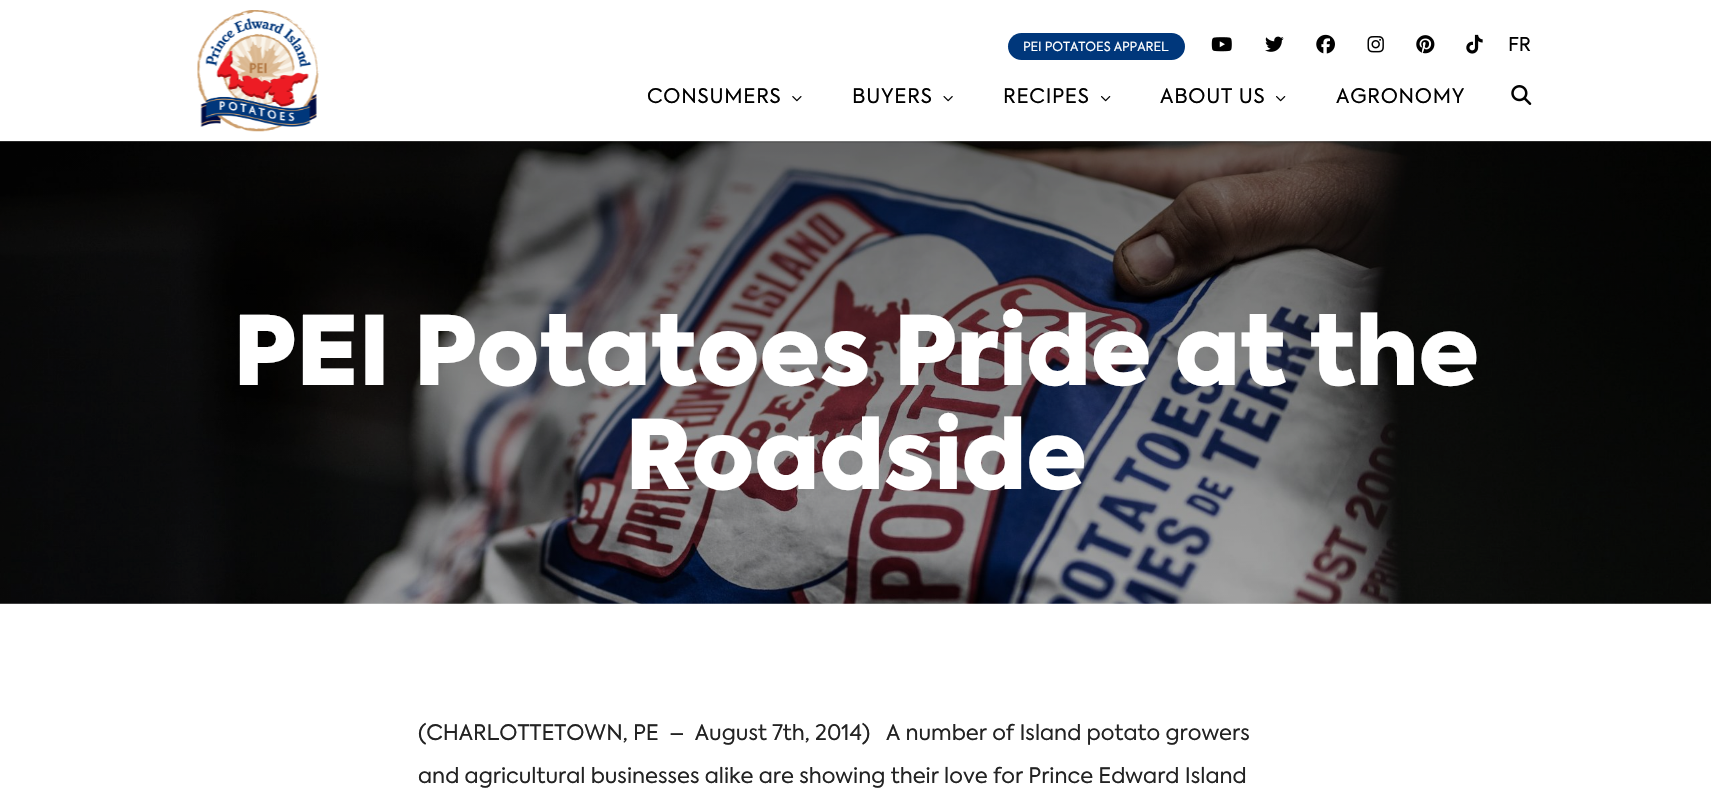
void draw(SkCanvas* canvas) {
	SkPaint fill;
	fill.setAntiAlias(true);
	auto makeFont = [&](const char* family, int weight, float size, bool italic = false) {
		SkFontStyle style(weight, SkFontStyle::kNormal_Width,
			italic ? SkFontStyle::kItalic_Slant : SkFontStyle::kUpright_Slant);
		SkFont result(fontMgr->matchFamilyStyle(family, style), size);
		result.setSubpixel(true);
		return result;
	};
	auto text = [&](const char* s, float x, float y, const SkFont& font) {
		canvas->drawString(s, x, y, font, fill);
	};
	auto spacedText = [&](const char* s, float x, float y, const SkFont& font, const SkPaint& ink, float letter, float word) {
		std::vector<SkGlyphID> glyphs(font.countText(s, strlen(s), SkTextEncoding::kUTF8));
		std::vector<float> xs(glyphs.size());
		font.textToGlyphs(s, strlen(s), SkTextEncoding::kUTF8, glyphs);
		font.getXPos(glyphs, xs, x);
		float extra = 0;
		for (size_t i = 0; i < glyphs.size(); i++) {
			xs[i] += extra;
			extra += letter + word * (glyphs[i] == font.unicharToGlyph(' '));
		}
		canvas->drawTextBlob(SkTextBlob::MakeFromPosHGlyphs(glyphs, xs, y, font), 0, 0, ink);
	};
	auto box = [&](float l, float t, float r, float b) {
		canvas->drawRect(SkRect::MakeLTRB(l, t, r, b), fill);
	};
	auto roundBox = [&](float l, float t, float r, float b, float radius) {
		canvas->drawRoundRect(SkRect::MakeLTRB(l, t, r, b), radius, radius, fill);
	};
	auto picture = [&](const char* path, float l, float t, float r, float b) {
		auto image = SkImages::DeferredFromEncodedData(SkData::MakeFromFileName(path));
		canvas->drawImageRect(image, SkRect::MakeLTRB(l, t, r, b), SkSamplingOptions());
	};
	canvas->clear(0xFFFFFFFF);
	picture("image11.png", 0, 141, 1711, 604);
	fill.setColor(0x1A000000);
	box(0, 141, 1711, 143);
	picture("image0.png", 197, 10, 320, 132);
	fill.setColor(0xFF00377B);
	roundBox(1008, 33, 1185, 60, 13.5f);
	picture("image1.png", 1211, 37, 1232, 52);
	picture("image2.png", 1265, 36, 1284, 52);
	picture("image3.png", 1316, 34, 1335, 54);
	picture("image4.png", 1367, 36, 1384, 53);
	picture("image5.png", 1416, 35, 1435, 54);
	picture("image6.png", 1466, 34, 1483, 54);
	picture("image7.png", 792, 96, 802, 102);
	picture("image8.png", 943, 96, 953, 102);
	picture("image9.png", 1101, 96, 1111, 102);
	picture("image9.png", 1276, 96, 1286, 102);
	picture("image10.png", 1511, 85, 1532, 105);
	auto font1 = makeFont("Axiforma", 400, 12.5f);
	fill.setColor(0xFFFFFFFF);
	text("PEI POTATOES APPAREL", 1023, 51, font1);
	auto font2 = makeFont("Axiforma", 400, 19);
	fill.setColor(0xFF010101);
	text("FR", 1508, 51, font2);
	auto font3 = makeFont("Axiforma", 400, 20);
	spacedText("CONSUMERS", 647, 103, font3, fill, 0.75f, 0);
	spacedText("BUYERS", 852, 103, font3, fill, 0.75f, 0);
	spacedText("RECIPES", 1003, 103, font3, fill, 0.75f, 0);
	spacedText("ABOUT US", 1160, 103, font3, fill, 0.75f, 0);
	spacedText("AGRONOMY", 1336, 103, font3, fill, 0.75f, 0);
	auto font4 = makeFont("Axiforma", 900, 95);
	fill.setColor(0xFFFFFFFF);
	spacedText("PEI Potatoes Pride at the", 233, 385, font4, fill, -0.1f, 0);
	spacedText("Roadside", 625, 489, font4, fill, -0.1f, 0);
	auto font5 = makeFont("Axiforma", 400, 21.25f);
	fill.setColor(0xFF232323);
	text("(CHARLOTTETOWN, PE  –  August 7th, 2014)   A number of Island potato growers", 418, 740, font5);
	text("and agricultural businesses alike are showing their love for Prince Edward Island", 418, 783, font5);
}
